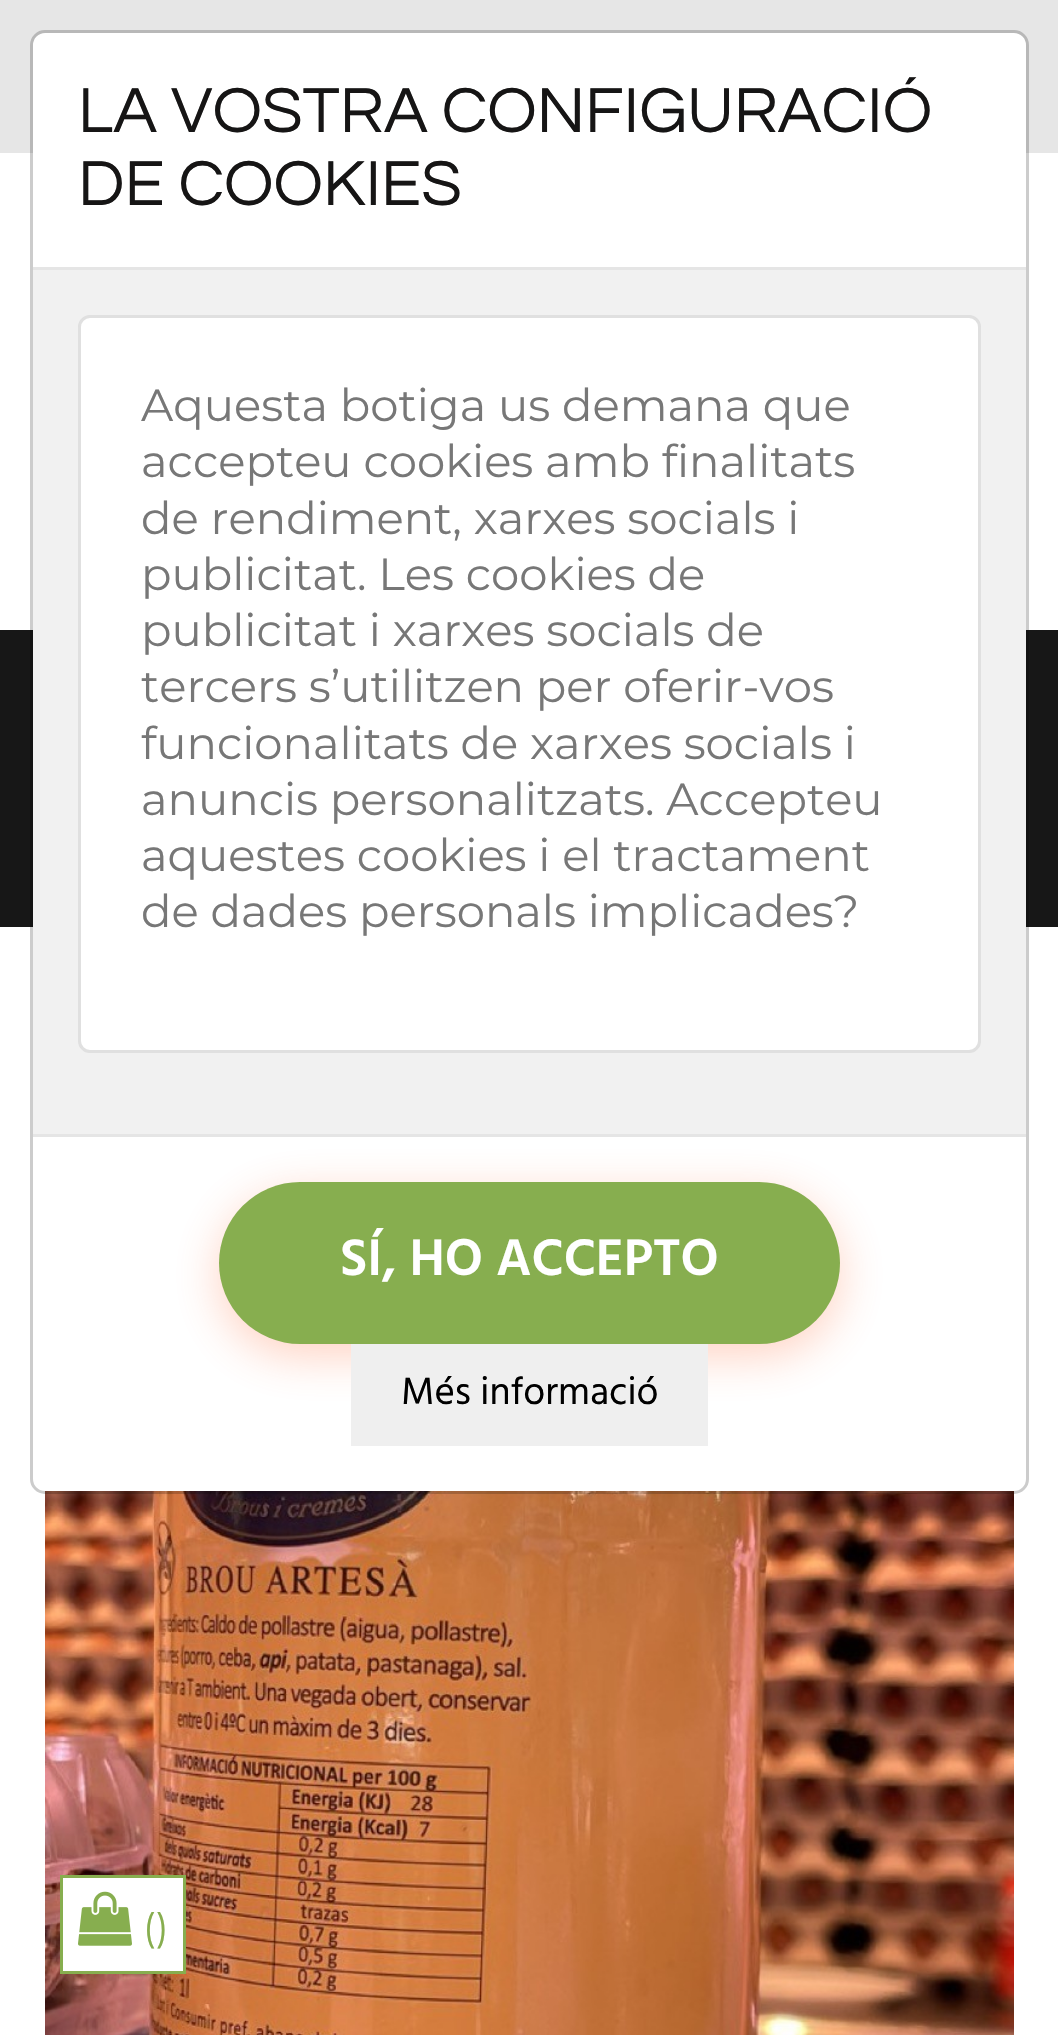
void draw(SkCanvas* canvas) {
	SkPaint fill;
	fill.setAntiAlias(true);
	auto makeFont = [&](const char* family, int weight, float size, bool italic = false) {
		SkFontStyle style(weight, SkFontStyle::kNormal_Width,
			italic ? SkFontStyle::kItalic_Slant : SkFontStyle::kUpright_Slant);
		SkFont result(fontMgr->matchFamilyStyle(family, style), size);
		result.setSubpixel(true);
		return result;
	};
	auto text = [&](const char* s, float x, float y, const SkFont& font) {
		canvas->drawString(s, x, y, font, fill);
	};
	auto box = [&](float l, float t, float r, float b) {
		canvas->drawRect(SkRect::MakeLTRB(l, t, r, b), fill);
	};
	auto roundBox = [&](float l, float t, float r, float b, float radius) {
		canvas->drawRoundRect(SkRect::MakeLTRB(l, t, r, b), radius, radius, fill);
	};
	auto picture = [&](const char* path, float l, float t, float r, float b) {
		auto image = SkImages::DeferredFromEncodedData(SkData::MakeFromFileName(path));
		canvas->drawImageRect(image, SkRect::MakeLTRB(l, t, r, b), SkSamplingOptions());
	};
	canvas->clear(0xFFFFFFFF);
	fill.setColor(0xFFE6E6E6);
	box(0, 0, 1058, 153);
	fill.setColor(0xFF171717);
	box(0, 630, 1058, 927);
	picture("image0.png", 45, 1491, 1014, 2035);
	fill.setColor(0xFFFFFFFF);
	roundBox(33, 33, 1026, 1491, 12);
	fill.setStyle(SkPaint::kStroke_Style);
	fill.setStrokeWidth(3);
	fill.setColor(0x33000000);
	canvas->drawRoundRect(SkRect::MakeLTRB(31.5f, 31.5f, 1027.5f, 1492.5f), 13.5f, 13.5f, fill);
	fill.setStyle(SkPaint::kFill_Style);
	fill.setColor(0xFFE5E5E5);
	box(33, 267, 1026, 270);
	box(33, 1134, 1026, 1137);
	fill.setColor(0x4DFF6B35);
	fill.setMaskFilter(SkMaskFilter::MakeBlur(kNormal_SkBlurStyle, 22.5f));
	canvas->drawRoundRect(SkRect::MakeLTRB(219, 1194, 840, 1356), 81, 81, fill);
	fill.setMaskFilter(nullptr);
	fill.setColor(0xFFF1F1F1);
	box(33, 270, 1026, 1134);
	fill.setColor(0xFFFFFFFF);
	roundBox(78, 315, 981, 1053, 12);
	fill.setStyle(SkPaint::kStroke_Style);
	fill.setColor(0x1F000000);
	canvas->drawRoundRect(SkRect::MakeLTRB(79.5f, 316.5f, 979.5f, 1051.5f), 10.5f, 10.5f, fill);
	fill.setStyle(SkPaint::kFill_Style);
	fill.setColor(0xFF87AE4F);
	roundBox(219, 1182, 840, 1344, 81);
	fill.setColor(0xFFEFEFEF);
	box(351, 1344, 708, 1446);
	fill.setColor(0xFFFFFFFF);
	canvas->drawRect(SkRect::MakeLTRB(61.5f, 1876.5f, 184.5f, 1972.5f), fill);
	fill.setStyle(SkPaint::kStroke_Style);
	fill.setColor(0xFF87AE4F);
	canvas->drawRect(SkRect::MakeLTRB(61.5f, 1876.5f, 184.5f, 1972.5f), fill);
	picture("image1.png", 78, 1891, 132, 1946);
	auto font1 = makeFont("Questrial", 400, 66);
	fill.setStyle(SkPaint::kFill_Style);
	fill.setColor(0xFF161515);
	text("LA VOSTRA CONFIGURACIÓ", 78, 132, font1);
	text("DE COOKIES", 78, 205, font1);
	auto font2 = makeFont("Montserrat", 100, 45);
	fill.setColor(0xFF777777);
	text("Aquesta botiga us demana que", 141, 421, font2);
	text("accepteu cookies amb finalitats", 141, 477, font2);
	text("de rendiment, xarxes socials i", 141, 534, font2);
	text("publicitat. Les cookies de", 141, 590, font2);
	text("publicitat i xarxes socials de", 141, 646, font2);
	text("tercers s’utilitzen per oferir-vos", 141, 702, font2);
	text("funcionalitats de xarxes socials i", 141, 759, font2);
	text("anuncis personalitzats. Accepteu", 141, 815, font2);
	text("aquestes cookies i el tractament", 141, 871, font2);
	text("de dades personals implicades?", 141, 927, font2);
	auto font3 = makeFont("Hind", 600, 52.75f);
	fill.setColor(0xFFFFFFFF);
	text("SÍ, HO ACCEPTO", 340, 1275, font3);
	auto font4 = makeFont("Hind", 400, 39);
	fill.setColor(0xFF000000);
	text("Més informació", 401, 1404, font4);
	auto font5 = makeFont("Montserrat", 100, 39);
	fill.setColor(0xFF87AE4F);
	text("()", 143, 1941, font5);
}
